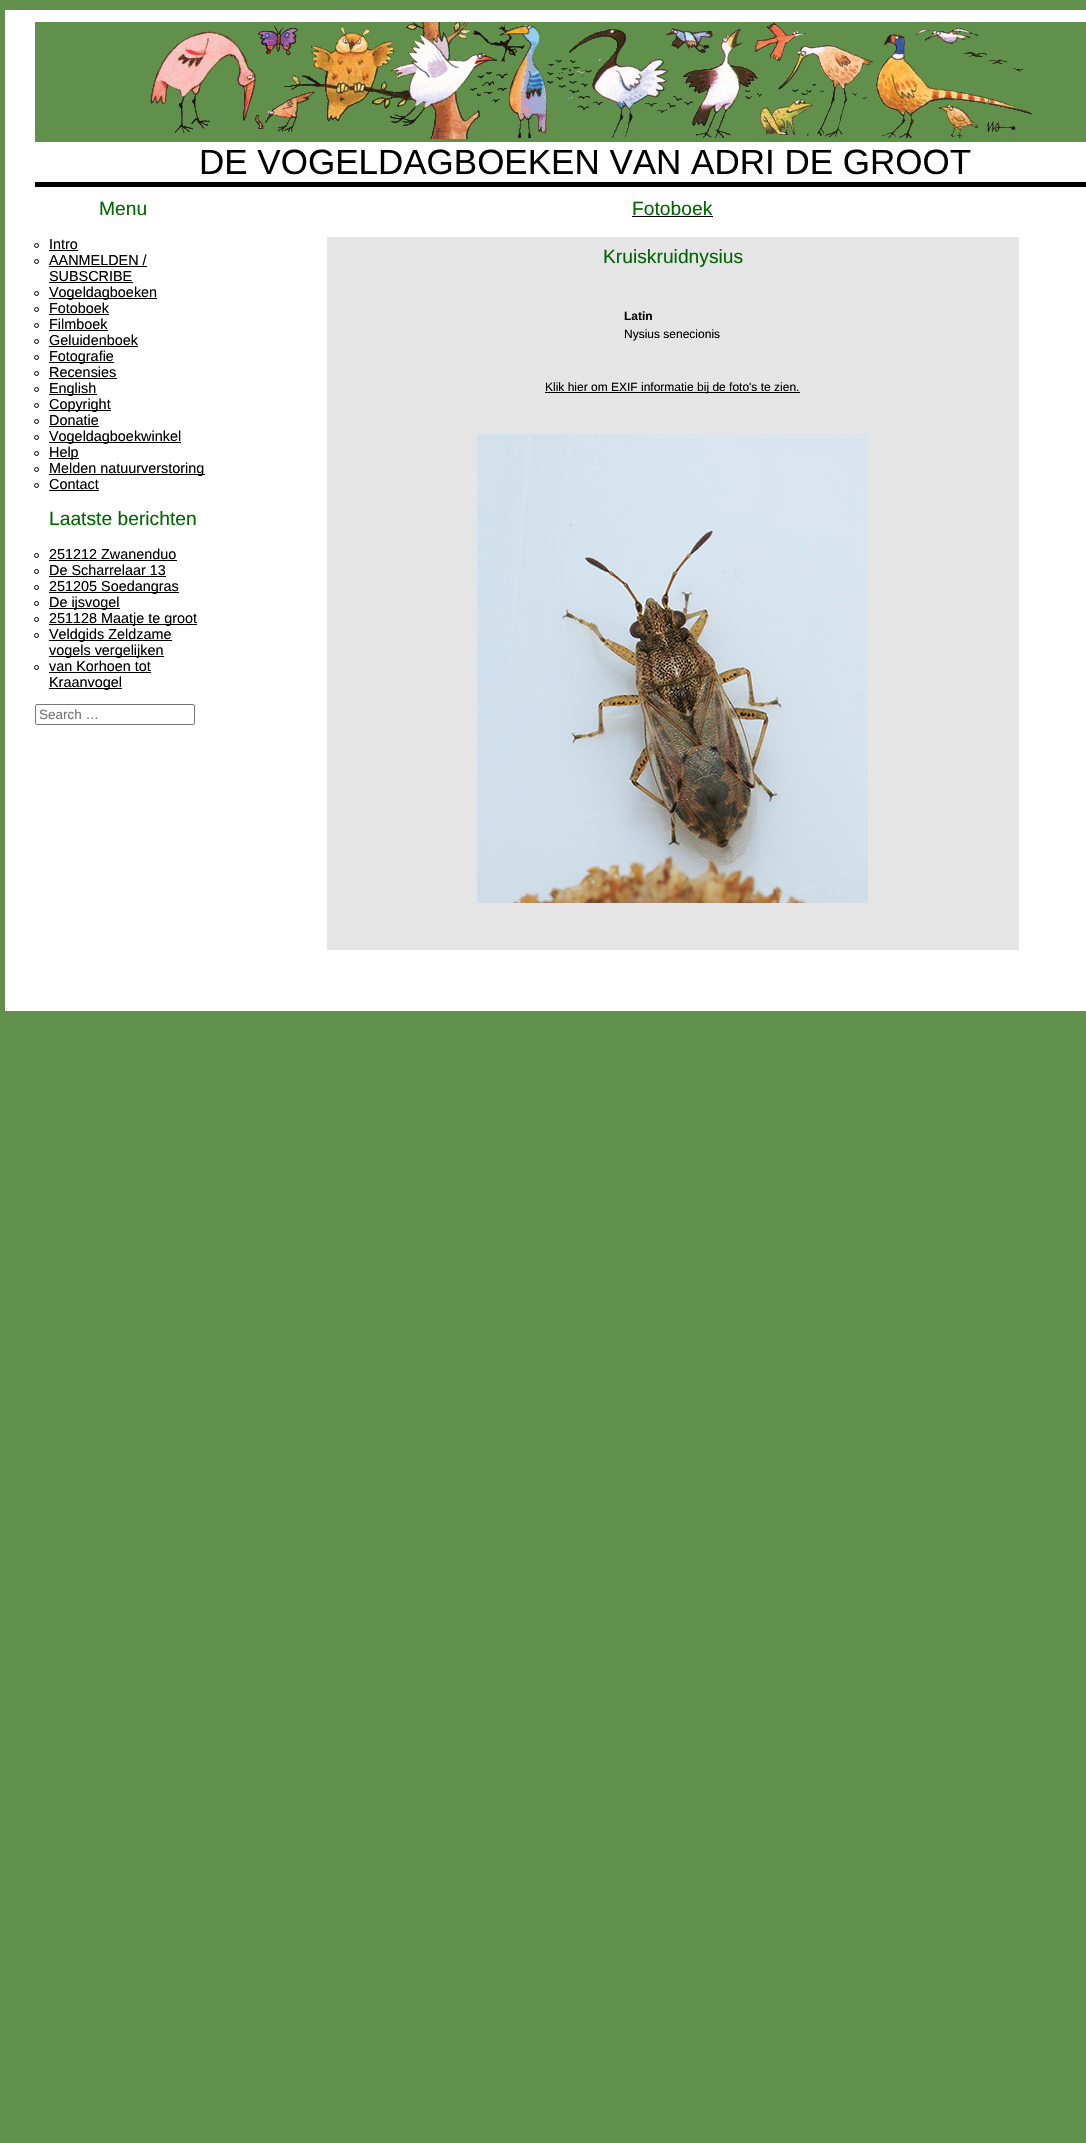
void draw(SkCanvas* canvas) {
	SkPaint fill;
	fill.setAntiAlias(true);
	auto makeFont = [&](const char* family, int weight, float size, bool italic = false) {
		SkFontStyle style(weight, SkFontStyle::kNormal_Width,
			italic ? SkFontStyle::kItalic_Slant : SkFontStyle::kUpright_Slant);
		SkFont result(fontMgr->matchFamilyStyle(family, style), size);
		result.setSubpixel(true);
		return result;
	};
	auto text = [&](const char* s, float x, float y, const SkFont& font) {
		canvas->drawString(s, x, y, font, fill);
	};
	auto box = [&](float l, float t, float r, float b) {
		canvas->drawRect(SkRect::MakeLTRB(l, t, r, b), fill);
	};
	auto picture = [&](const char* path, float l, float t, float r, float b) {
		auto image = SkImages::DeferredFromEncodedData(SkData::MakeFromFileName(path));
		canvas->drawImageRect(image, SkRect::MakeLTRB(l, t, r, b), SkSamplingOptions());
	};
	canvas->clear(0xFF61904C);
	fill.setColor(0xFFFFFFFF);
	box(5, 10, 1086, 1011);
	fill.setColor(0xFF000000);
	box(35, 182, 1086, 187);
	fill.setColor(0xFF61904C);
	box(35, 22, 1086, 142);
	picture("image0.png", 150, 22, 1032, 139);
	fill.setStyle(SkPaint::kStroke_Style);
	fill.setStrokeWidth(1);
	fill.setColor(0xFF000000);
	canvas->drawCircle(36.5f, 245.5f, 2, fill);
	fill.setStyle(SkPaint::kFill_Style);
	box(49, 250, 78, 251);
	fill.setStyle(SkPaint::kStroke_Style);
	canvas->drawCircle(36.5f, 261.5f, 2, fill);
	fill.setStyle(SkPaint::kFill_Style);
	box(49, 266, 147, 267);
	box(49, 282, 133, 283);
	fill.setStyle(SkPaint::kStroke_Style);
	canvas->drawCircle(36.5f, 293.5f, 2, fill);
	fill.setStyle(SkPaint::kFill_Style);
	box(49, 298, 157, 299);
	fill.setStyle(SkPaint::kStroke_Style);
	canvas->drawCircle(36.5f, 309.5f, 2, fill);
	fill.setStyle(SkPaint::kFill_Style);
	box(49, 314, 109, 315);
	fill.setStyle(SkPaint::kStroke_Style);
	canvas->drawCircle(36.5f, 325.5f, 2, fill);
	fill.setStyle(SkPaint::kFill_Style);
	box(49, 330, 108, 331);
	fill.setStyle(SkPaint::kStroke_Style);
	canvas->drawCircle(36.5f, 341.5f, 2, fill);
	fill.setStyle(SkPaint::kFill_Style);
	box(49, 346, 138, 347);
	fill.setStyle(SkPaint::kStroke_Style);
	canvas->drawCircle(36.5f, 357.5f, 2, fill);
	fill.setStyle(SkPaint::kFill_Style);
	box(49, 362, 114, 363);
	fill.setStyle(SkPaint::kStroke_Style);
	canvas->drawCircle(36.5f, 373.5f, 2, fill);
	fill.setStyle(SkPaint::kFill_Style);
	box(49, 378, 117, 379);
	fill.setStyle(SkPaint::kStroke_Style);
	canvas->drawCircle(36.5f, 389.5f, 2, fill);
	fill.setStyle(SkPaint::kFill_Style);
	box(49, 394, 97, 395);
	fill.setStyle(SkPaint::kStroke_Style);
	canvas->drawCircle(36.5f, 405.5f, 2, fill);
	fill.setStyle(SkPaint::kFill_Style);
	box(49, 410, 111, 411);
	fill.setStyle(SkPaint::kStroke_Style);
	canvas->drawCircle(36.5f, 421.5f, 2, fill);
	fill.setStyle(SkPaint::kFill_Style);
	box(49, 426, 99, 427);
	fill.setStyle(SkPaint::kStroke_Style);
	canvas->drawCircle(36.5f, 437.5f, 2, fill);
	fill.setStyle(SkPaint::kFill_Style);
	box(49, 442, 181, 443);
	fill.setStyle(SkPaint::kStroke_Style);
	canvas->drawCircle(36.5f, 453.5f, 2, fill);
	fill.setStyle(SkPaint::kFill_Style);
	box(49, 458, 79, 459);
	fill.setStyle(SkPaint::kStroke_Style);
	canvas->drawCircle(36.5f, 469.5f, 2, fill);
	fill.setStyle(SkPaint::kFill_Style);
	box(49, 474, 205, 475);
	fill.setStyle(SkPaint::kStroke_Style);
	canvas->drawCircle(36.5f, 485.5f, 2, fill);
	fill.setStyle(SkPaint::kFill_Style);
	box(49, 490, 99, 491);
	fill.setStyle(SkPaint::kStroke_Style);
	canvas->drawCircle(36.5f, 555.5f, 2, fill);
	fill.setStyle(SkPaint::kFill_Style);
	box(49, 560, 177, 561);
	fill.setStyle(SkPaint::kStroke_Style);
	canvas->drawCircle(36.5f, 571.5f, 2, fill);
	fill.setStyle(SkPaint::kFill_Style);
	box(49, 576, 166, 577);
	fill.setStyle(SkPaint::kStroke_Style);
	canvas->drawCircle(36.5f, 587.5f, 2, fill);
	fill.setStyle(SkPaint::kFill_Style);
	box(49, 592, 179, 593);
	fill.setStyle(SkPaint::kStroke_Style);
	canvas->drawCircle(36.5f, 603.5f, 2, fill);
	fill.setStyle(SkPaint::kFill_Style);
	box(49, 608, 120, 609);
	fill.setStyle(SkPaint::kStroke_Style);
	canvas->drawCircle(36.5f, 619.5f, 2, fill);
	fill.setStyle(SkPaint::kFill_Style);
	box(49, 624, 197, 625);
	fill.setStyle(SkPaint::kStroke_Style);
	canvas->drawCircle(36.5f, 635.5f, 2, fill);
	fill.setStyle(SkPaint::kFill_Style);
	box(49, 640, 172, 641);
	box(49, 656, 164, 657);
	fill.setStyle(SkPaint::kStroke_Style);
	canvas->drawCircle(36.5f, 667.5f, 2, fill);
	fill.setStyle(SkPaint::kFill_Style);
	box(49, 672, 151, 673);
	box(49, 688, 122, 689);
	fill.setStyle(SkPaint::kStroke_Style);
	fill.setColor(0xFF767676);
	canvas->drawRoundRect(SkRect::MakeLTRB(35.5f, 704.5f, 194.5f, 724.5f), 1.5f, 1.5f, fill);
	fill.setStyle(SkPaint::kFill_Style);
	fill.setColor(0xFF000000);
	box(632, 216, 713, 217);
	fill.setColor(0xFFE5E5E5);
	box(327, 237, 1019, 950);
	fill.setColor(0xFF000000);
	box(545, 392, 800, 393);
	picture("image1.png", 477, 434, 868, 903);
	auto font1 = makeFont("Liberation Sans", 400, 35);
	text("DE VOGELDAGBOEKEN VAN ADRI DE GROOT", 199, 174, font1);
	auto font2 = makeFont("Liberation Sans", 400, 19.25f);
	fill.setColor(0xFF006600);
	text("Menu", 99, 215, font2);
	auto font3 = makeFont("Liberation Sans", 400, 14.4f);
	fill.setColor(0xFF000000);
	text("Intro", 49, 249, font3);
	text("AANMELDEN /", 49, 265, font3);
	text("SUBSCRIBE", 49, 281, font3);
	text("Vogeldagboeken", 49, 297, font3);
	text("Fotoboek", 49, 313, font3);
	text("Filmboek", 49, 329, font3);
	text("Geluidenboek", 49, 345, font3);
	text("Fotografie", 49, 361, font3);
	text("Recensies", 49, 377, font3);
	text("English", 49, 393, font3);
	text("Copyright", 49, 409, font3);
	text("Donatie", 49, 425, font3);
	text("Vogeldagboekwinkel", 49, 441, font3);
	text("Help", 49, 457, font3);
	text("Melden natuurverstoring", 49, 473, font3);
	text("Contact", 49, 489, font3);
	fill.setColor(0xFF006600);
	text("Laatste berichten", 49, 525, font2);
	fill.setColor(0xFF000000);
	text("251212 Zwanenduo", 49, 559, font3);
	text("De Scharrelaar 13", 49, 575, font3);
	text("251205 Soedangras", 49, 591, font3);
	text("De ijsvogel", 49, 607, font3);
	text("251128 Maatje te groot", 49, 623, font3);
	text("Veldgids Zeldzame", 49, 639, font3);
	text("vogels vergelijken", 49, 655, font3);
	text("van Korhoen tot", 49, 671, font3);
	text("Kraanvogel", 49, 687, font3);
	auto font4 = makeFont("Liberation Sans", 400, 13.5f);
	fill.setColor(0xFF757575);
	text("Search …", 39, 719, font4);
	fill.setColor(0xFF006600);
	text("Fotoboek", 632, 215, font2);
	text("Kruiskruidnysius", 603, 263, font2);
	auto font5 = makeFont("Liberation Sans", 700, 12);
	fill.setColor(0xFF000000);
	text("Latin", 624, 320, font5);
	auto font6 = makeFont("Liberation Sans", 400, 12);
	text("Nysius senecionis", 624, 338, font6);
	text("Klik hier om EXIF informatie bij de foto's te zien.", 545, 391, font6);
}
